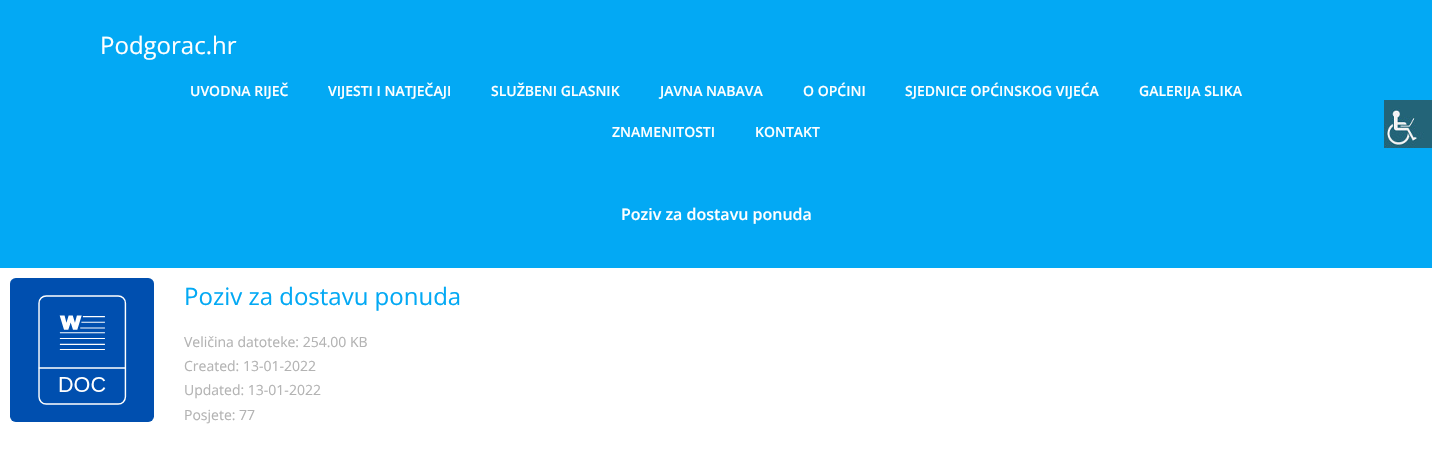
void draw(SkCanvas* canvas) {
	SkPaint fill;
	fill.setAntiAlias(true);
	auto makeFont = [&](const char* family, int weight, float size, bool italic = false) {
		SkFontStyle style(weight, SkFontStyle::kNormal_Width,
			italic ? SkFontStyle::kItalic_Slant : SkFontStyle::kUpright_Slant);
		SkFont result(fontMgr->matchFamilyStyle(family, style), size);
		result.setSubpixel(true);
		return result;
	};
	auto text = [&](const char* s, float x, float y, const SkFont& font) {
		canvas->drawString(s, x, y, font, fill);
	};
	auto box = [&](float l, float t, float r, float b) {
		canvas->drawRect(SkRect::MakeLTRB(l, t, r, b), fill);
	};
	auto picture = [&](const char* path, float l, float t, float r, float b) {
		auto image = SkImages::DeferredFromEncodedData(SkData::MakeFromFileName(path));
		canvas->drawImageRect(image, SkRect::MakeLTRB(l, t, r, b), SkSamplingOptions());
	};
	canvas->clear(0xFFFFFFFF);
	fill.setColor(0xFF03A9F4);
	box(0, 0, 1432, 268);
	picture("image0.png", 10, 278, 154, 422);
	picture("image1.png", 1384, 100, 1432, 148);
	auto font1 = makeFont("Open Sans", 400, 24);
	fill.setColor(0xFFFFFFFF);
	text("Podgorac.hr", 100, 54, font1);
	auto font2 = makeFont("Open Sans", 600, 14);
	text("UVODNA RIJEČ", 190, 96, font2);
	text("VIJESTI I NATJEČAJI", 328, 96, font2);
	text("SLUŽBENI GLASNIK", 491, 96, font2);
	text("JAVNA NABAVA", 660, 96, font2);
	text("O OPĆINI", 803, 96, font2);
	text("SJEDNICE OPĆINSKOG VIJEĆA", 905, 96, font2);
	text("GALERIJA SLIKA", 1139, 96, font2);
	text("ZNAMENITOSTI", 612, 137, font2);
	text("KONTAKT", 755, 137, font2);
	auto font3 = makeFont("Open Sans", 600, 16);
	text("Poziv za dostavu ponuda", 621, 220, font3);
	fill.setColor(0xFF03A9F4);
	text("Poziv za dostavu ponuda", 184, 305, font1);
	auto font4 = makeFont("Open Sans", 400, 14);
	fill.setColor(0xFFB3B3B3);
	text("Veličina datoteke: 254.00 KB", 184, 347, font4);
	text("Created: 13-01-2022", 184, 371, font4);
	text("Updated: 13-01-2022", 184, 395, font4);
	text("Posjete: 77", 184, 420, font4);
}
